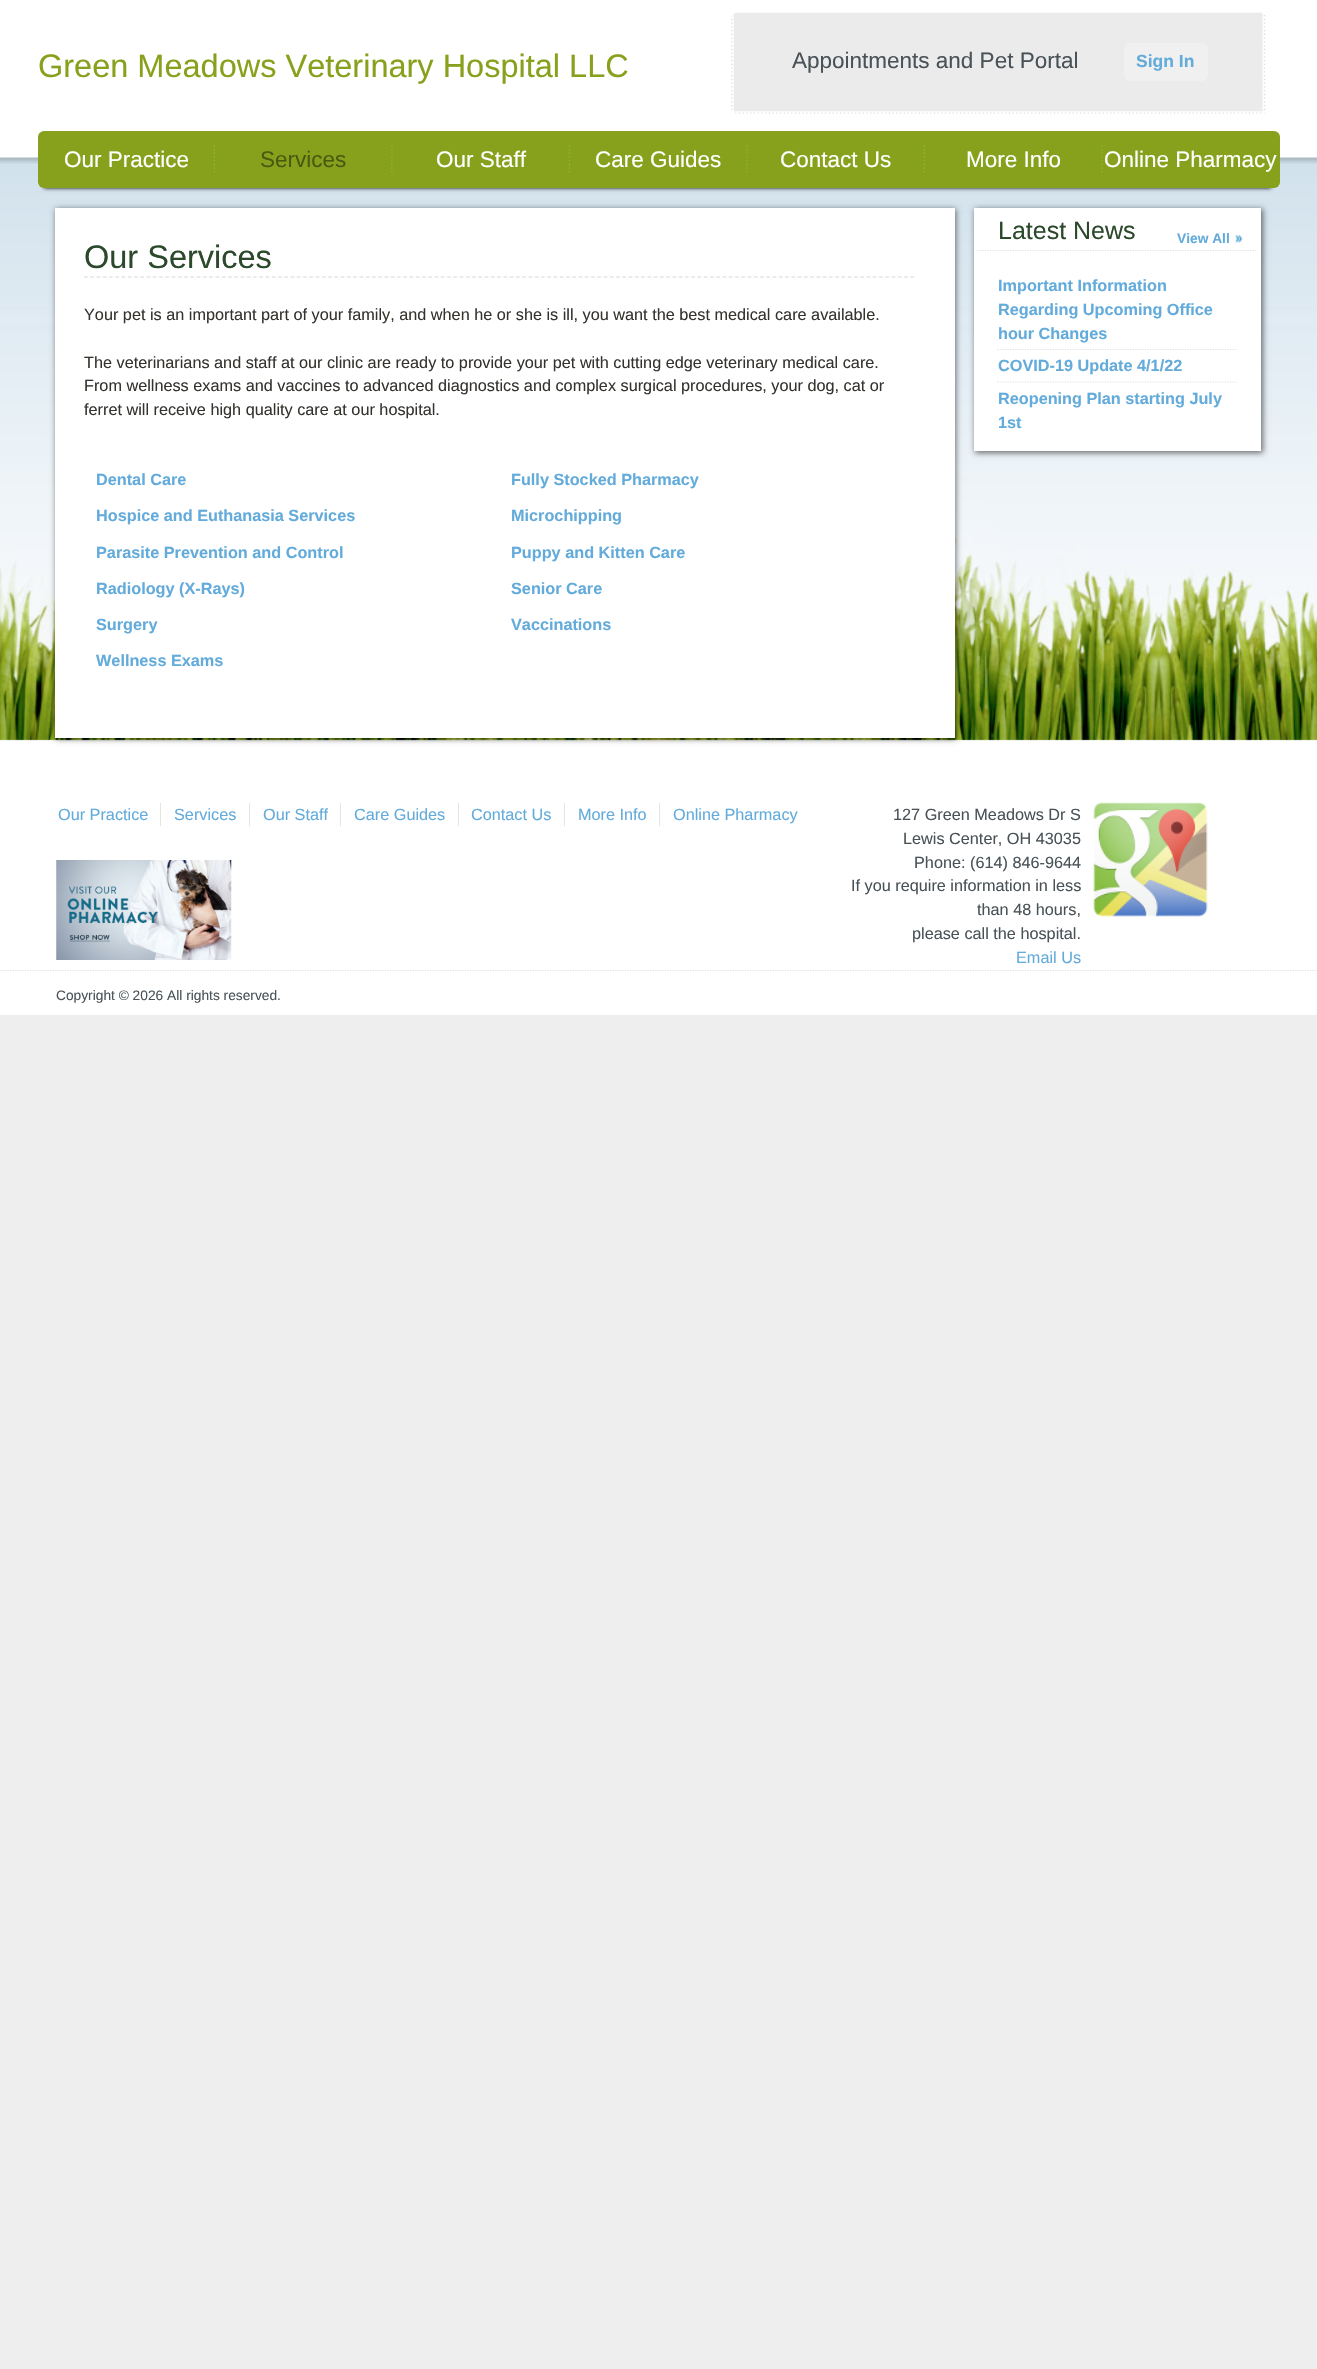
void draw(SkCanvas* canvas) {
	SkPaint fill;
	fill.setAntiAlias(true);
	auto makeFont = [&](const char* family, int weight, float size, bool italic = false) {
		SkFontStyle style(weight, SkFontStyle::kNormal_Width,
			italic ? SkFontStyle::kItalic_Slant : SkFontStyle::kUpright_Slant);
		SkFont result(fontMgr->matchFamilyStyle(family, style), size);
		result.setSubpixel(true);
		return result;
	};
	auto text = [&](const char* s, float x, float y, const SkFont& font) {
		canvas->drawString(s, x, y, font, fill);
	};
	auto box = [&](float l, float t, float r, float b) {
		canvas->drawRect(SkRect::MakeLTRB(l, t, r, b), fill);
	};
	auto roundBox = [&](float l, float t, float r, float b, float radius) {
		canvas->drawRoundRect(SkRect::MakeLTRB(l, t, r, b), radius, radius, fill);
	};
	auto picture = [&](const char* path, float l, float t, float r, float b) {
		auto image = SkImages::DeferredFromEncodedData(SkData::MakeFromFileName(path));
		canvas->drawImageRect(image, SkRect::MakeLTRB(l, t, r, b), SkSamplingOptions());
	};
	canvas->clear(0xFFEEEEEE);
	picture("image0.png", 0, 157, 1317, 1015);
	picture("image1.png", 0, 0, 1317, 164);
	picture("image2.png", 731, 12, 1266, 114);
	fill.setColor(0xFFF0F0F0);
	roundBox(1124, 43, 1208, 81, 6);
	fill.setColor(0xFF000000);
	fill.setMaskFilter(SkMaskFilter::MakeBlur(kNormal_SkBlurStyle, 2));
	canvas->drawRect(SkRect::MakeLTRB(44, 146, 1271, 188), fill);
	fill.setMaskFilter(nullptr);
	fill.setColor(0xFF88A11C);
	roundBox(38, 131, 1280, 188, 6);
	picture("image3.png", 213, 145, 215, 173);
	picture("image4.png", 391, 145, 393, 173);
	picture("image3.png", 568, 145, 570, 173);
	picture("image4.png", 746, 145, 748, 173);
	picture("image3.png", 923, 145, 925, 173);
	picture("image4.png", 1101, 145, 1103, 173);
	fill.setColor(0x8C000000);
	fill.setMaskFilter(SkMaskFilter::MakeBlur(kNormal_SkBlurStyle, 3));
	canvas->drawRect(SkRect::MakeLTRB(56, 209, 956, 739), fill);
	fill.setMaskFilter(nullptr);
	fill.setColor(0xFFFFFFFF);
	box(55, 208, 955, 738);
	fill.setStyle(SkPaint::kStroke_Style);
	fill.setStrokeWidth(1.2f);
	fill.setColor(0xFFD8D8D8);
	fill.setPathEffect(SkDashPathEffect::Make({{3.75f, 2.51f}}, 0));
	canvas->drawPath(SkPathBuilder().moveTo(84, 277).lineTo(914, 277).detach(), fill);
	fill.setPathEffect(nullptr);
	fill.setStyle(SkPaint::kFill_Style);
	fill.setColor(0x8C000000);
	fill.setMaskFilter(SkMaskFilter::MakeBlur(kNormal_SkBlurStyle, 3));
	canvas->drawRect(SkRect::MakeLTRB(975, 209, 1263, 453), fill);
	fill.setMaskFilter(nullptr);
	fill.setColor(0xFFFFFFFF);
	box(974, 208, 1261, 451);
	fill.setStyle(SkPaint::kStroke_Style);
	fill.setColor(0xFFD9E2E8);
	fill.setPathEffect(SkDashPathEffect::Make({{1.25f, 1.25f}}, 0));
	canvas->drawPath(SkPathBuilder().moveTo(977.5f, 250.5f).lineTo(1257.5f, 250.5f).detach(), fill);
	fill.setPathEffect(nullptr);
	picture("image5.png", 1235, 234, 1243, 243);
	fill.setPathEffect(SkDashPathEffect::Make({{1.25f, 1.25f}}, 0));
	canvas->drawPath(SkPathBuilder().moveTo(997.5f, 349.5f).lineTo(1237.5f, 349.5f).detach(), fill);
	fill.setPathEffect(nullptr);
	fill.setPathEffect(SkDashPathEffect::Make({{1.25f, 1.25f}}, 0));
	canvas->drawPath(SkPathBuilder().moveTo(997.5f, 382).lineTo(1237.5f, 382).detach(), fill);
	fill.setPathEffect(nullptr);
	fill.setStyle(SkPaint::kFill_Style);
	fill.setColor(0xFFE6E5DF);
	box(160, 803, 161, 826);
	box(249, 803, 250, 826);
	box(340, 803, 341, 826);
	box(458, 803, 459, 826);
	box(564, 803, 565, 826);
	box(659, 803, 660, 826);
	picture("image6.png", 1093, 802, 1208, 917);
	picture("image7.png", 56, 860, 232, 960);
	fill.setStyle(SkPaint::kStroke_Style);
	fill.setColor(0xFFD9E2E8);
	fill.setPathEffect(SkDashPathEffect::Make({{1.25f, 1.25f}}, 0));
	canvas->drawPath(SkPathBuilder().moveTo(0, 970.5f).lineTo(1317.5f, 970.5f).detach(), fill);
	fill.setPathEffect(nullptr);
	auto font1 = makeFont("Liberation Sans", 400, 32.5f);
	fill.setStyle(SkPaint::kFill_Style);
	fill.setColor(0xFF88A11C);
	text("Green Meadows Veterinary Hospital LLC", 38, 77, font1);
	auto font2 = makeFont("Liberation Sans", 400, 22.5f);
	fill.setColor(0xFF495257);
	text("Appointments and Pet Portal", 792, 68, font2);
	auto font3 = makeFont("Liberation Sans", 700, 17.5f);
	fill.setColor(0xFF63ABDB);
	text("Sign In", 1136, 67, font3);
	fill.setColor(0xFFFFFFFF);
	text("Our Practice", 64, 167, font2);
	fill.setColor(0xFF4B5910);
	text("Services", 260, 167, font2);
	fill.setColor(0xFFFFFFFF);
	text("Our Staff", 436, 167, font2);
	text("Care Guides", 595, 167, font2);
	text("Contact Us", 780, 167, font2);
	text("More Info", 966, 167, font2);
	text("Online Pharmacy", 1104, 167, font2);
	fill.setColor(0xFF2C492C);
	text("Our Services", 84, 268, font1);
	auto font4 = makeFont("Liberation Sans", 400, 16.25f);
	fill.setColor(0xFF35332E);
	text("Your pet is an important part of your family, and when he or she is ill, you want the best medical care available.", 84, 320, font4);
	text("The veterinarians and staff at our clinic are ready to provide your pet with cutting edge veterinary medical care.", 84, 368, font4);
	text("From wellness exams and vaccines to advanced diagnostics and complex surgical procedures, your dog, cat or", 84, 391, font4);
	text("ferret will receive high quality care at our hospital.", 84, 415, font4);
	auto font5 = makeFont("Liberation Sans", 700, 16.25f);
	fill.setColor(0xFF63ABDB);
	text("Dental Care", 96, 485, font5);
	text("Fully Stocked Pharmacy", 511, 485, font5);
	text("Hospice and Euthanasia Services", 96, 521, font5);
	text("Microchipping", 511, 521, font5);
	text("Parasite Prevention and Control", 96, 558, font5);
	text("Puppy and Kitten Care", 511, 558, font5);
	text("Radiology (X-Rays)", 96, 594, font5);
	text("Senior Care", 511, 594, font5);
	text("Surgery", 96, 630, font5);
	text("Vaccinations", 511, 630, font5);
	text("Wellness Exams", 96, 666, font5);
	auto font6 = makeFont("Liberation Sans", 400, 25);
	fill.setColor(0xFF2C492C);
	text("Latest News", 998, 239, font6);
	auto font7 = makeFont("Liberation Sans", 700, 13.75f);
	fill.setColor(0xFF63ABDB);
	text("View All", 1177, 243, font7);
	text("Important Information", 998, 291, font5);
	text("Regarding Upcoming Office", 998, 315, font5);
	text("hour Changes", 998, 339, font5);
	text("COVID-19 Update 4/1/22", 998, 371, font5);
	text("Reopening Plan starting July", 998, 404, font5);
	text("1st", 998, 428, font5);
	text("Our Practice", 58, 820, font4);
	text("Services", 174, 820, font4);
	text("Our Staff", 263, 820, font4);
	text("Care Guides", 354, 820, font4);
	text("Contact Us", 471, 820, font4);
	text("More Info", 578, 820, font4);
	text("Online Pharmacy", 673, 820, font4);
	fill.setColor(0xFF495257);
	text("127 Green Meadows Dr S", 893, 820, font4);
	text("Lewis Center, OH 43035", 903, 844, font4);
	text("Phone: (614) 846-9644", 914, 868, font4);
	text("If you require information in less", 851, 891, font4);
	text("than 48 hours,", 977, 915, font4);
	text("please call the hospital.", 912, 939, font4);
	fill.setColor(0xFF63ABDB);
	text("Email Us", 1016, 963, font4);
	auto font8 = makeFont("Liberation Sans", 400, 13.75f);
	fill.setColor(0xFF495257);
	text("Copyright © 2026 All rights reserved.", 56, 1000, font8);
}
